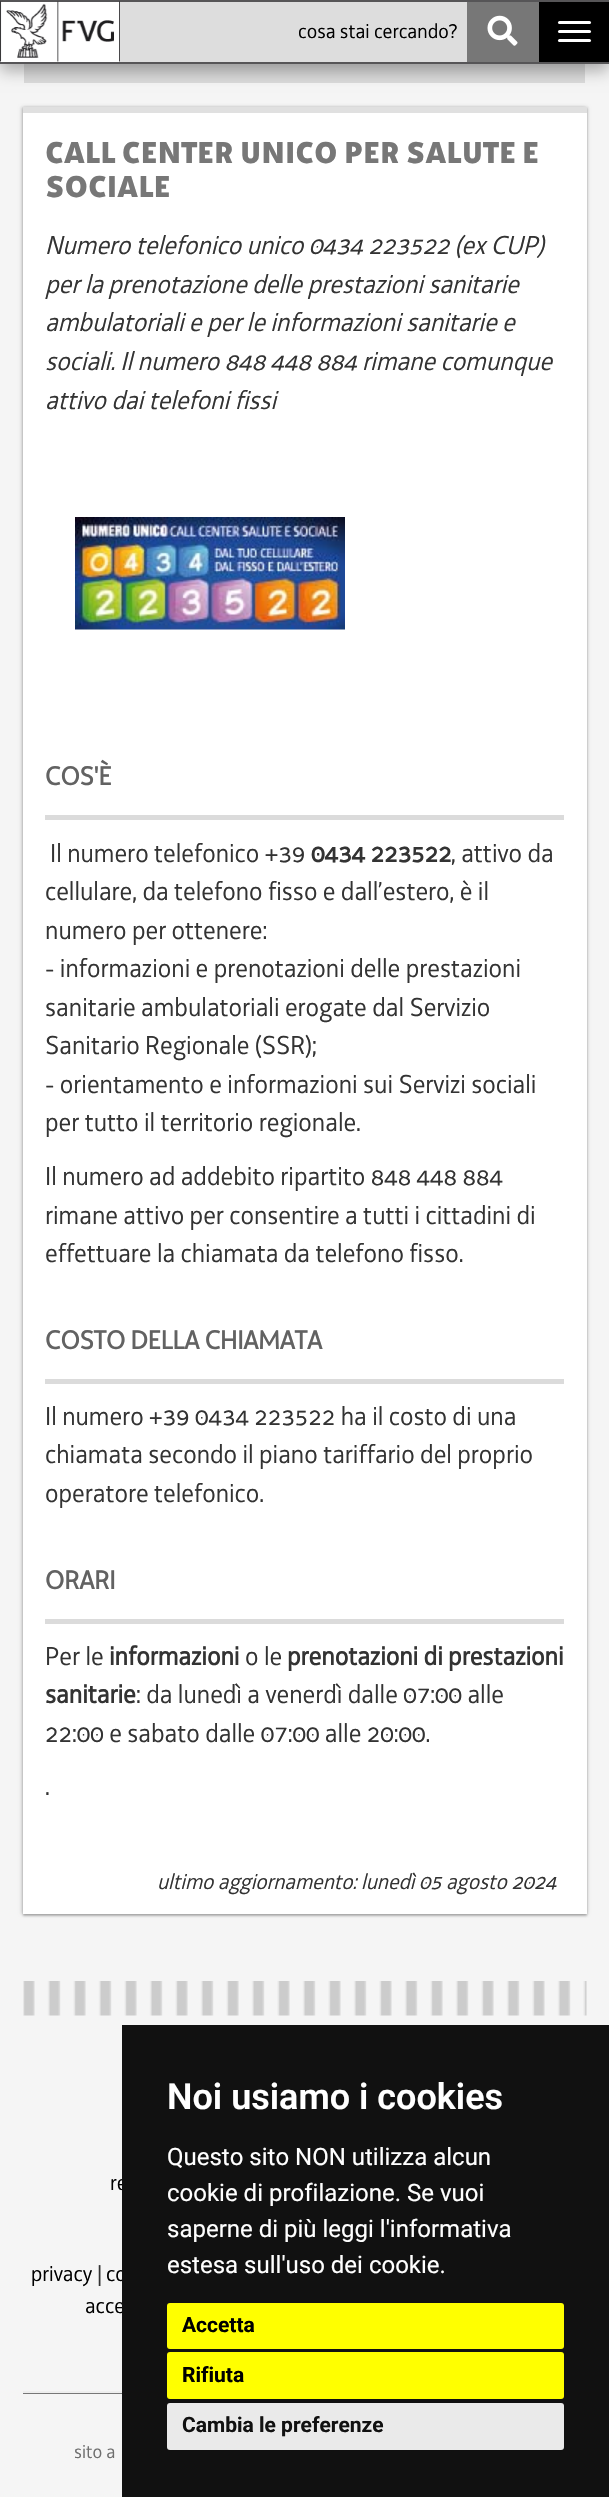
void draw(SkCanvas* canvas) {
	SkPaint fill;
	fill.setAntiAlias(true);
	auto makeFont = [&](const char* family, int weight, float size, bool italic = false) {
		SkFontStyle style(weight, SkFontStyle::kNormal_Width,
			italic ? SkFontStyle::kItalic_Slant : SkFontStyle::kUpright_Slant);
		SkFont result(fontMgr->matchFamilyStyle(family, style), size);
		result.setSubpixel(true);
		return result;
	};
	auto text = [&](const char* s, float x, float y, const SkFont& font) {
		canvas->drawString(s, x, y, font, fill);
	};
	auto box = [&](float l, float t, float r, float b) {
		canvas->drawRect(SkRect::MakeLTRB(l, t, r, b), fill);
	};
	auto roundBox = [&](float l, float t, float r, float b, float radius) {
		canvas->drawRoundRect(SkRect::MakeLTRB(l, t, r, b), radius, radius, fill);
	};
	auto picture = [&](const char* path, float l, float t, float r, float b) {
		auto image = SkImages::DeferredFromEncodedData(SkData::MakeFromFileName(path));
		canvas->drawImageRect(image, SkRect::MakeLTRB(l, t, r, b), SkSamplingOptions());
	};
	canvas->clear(0xFFF5F5F5);
	fill.setColor(0xFFDBDBDB);
	box(24, 64, 585, 83);
	fill.setColor(0x4D000000);
	fill.setMaskFilter(SkMaskFilter::MakeBlur(kNormal_SkBlurStyle, 7.5f));
	canvas->drawRect(SkRect::MakeLTRB(0, 8, 609, 71), fill);
	fill.setMaskFilter(nullptr);
	fill.setColor(0xFF565557);
	box(0, 0, 609, 2);
	box(0, 62, 609, 64);
	fill.setColor(0xFFDDDDDD);
	box(120, 2, 467, 62);
	fill.setColor(0xFFFFFFFF);
	box(0, 2, 120, 62);
	picture("image0.png", 0, 1, 120, 62);
	fill.setColor(0xFF777777);
	box(467, 2, 539, 62);
	picture("image1.png", 487, 15, 518, 46);
	fill.setColor(0xFF000000);
	box(539, 2, 609, 62);
	fill.setColor(0xFFFFFFFF);
	roundBox(558, 21, 591, 24, 1.5f);
	roundBox(558, 30, 591, 33, 1.5f);
	roundBox(558, 39, 591, 42, 1.5f);
	fill.setColor(0x3D000000);
	fill.setMaskFilter(SkMaskFilter::MakeBlur(kNormal_SkBlurStyle, 1));
	canvas->drawRect(SkRect::MakeLTRB(23, 108, 587, 1916), fill);
	fill.setMaskFilter(nullptr);
	fill.setColor(0x1F000000);
	fill.setMaskFilter(SkMaskFilter::MakeBlur(kNormal_SkBlurStyle, 1.5f));
	canvas->drawRect(SkRect::MakeLTRB(24, 107, 588, 1914), fill);
	fill.setMaskFilter(nullptr);
	fill.setMaskFilter(SkMaskFilter::MakeBlur(kNormal_SkBlurStyle, 1.5f));
	canvas->drawRect(SkRect::MakeLTRB(21, 107, 585, 1914), fill);
	fill.setMaskFilter(nullptr);
	fill.setColor(0xFFFFFFFF);
	box(23, 113, 587, 1914);
	fill.setColor(0xFFE0E0E0);
	box(23, 107, 587, 113);
	picture("image2.png", 75, 517, 345, 630);
	fill.setColor(0xFFDBDBDB);
	box(45, 815, 564, 820);
	box(45, 1379, 564, 1384);
	box(45, 1619, 564, 1624);
	picture("image3.png", 23, 1981, 587, 2016);
	fill.setColor(0xFF777777);
	box(23, 2393, 122, 2394);
	fill.setColor(0xFFEEEEEE);
	box(23, 2391, 122, 2393);
	auto font1 = makeFont("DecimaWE", 400, 21);
	fill.setColor(0xFF000000);
	text("cosa stai cercando?", 298, 38, font1);
	auto font2 = makeFont("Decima", 800, 31.5f);
	fill.setColor(0xFF777777);
	text("CALL CENTER UNICO PER SALUTE E", 45, 163, font2);
	text("SOCIALE", 45, 197, font2);
	auto font3 = makeFont("DecimaWE", 400, 27, true);
	fill.setColor(0xFF333333);
	text("Numero telefonico unico 0434 223522 (ex CUP)", 45, 254, font3);
	text("per la prenotazione delle prestazioni sanitarie", 45, 293, font3);
	text("ambulatoriali e per le informazioni sanitarie e", 45, 331, font3);
	text("sociali. Il numero 848 448 884 rimane comunque", 45, 370, font3);
	text("attivo dai telefoni fissi", 45, 409, font3);
	auto font4 = makeFont("DecimaWE", 700, 27);
	fill.setColor(0xFF626262);
	text("COS'È", 45, 785, font4);
	auto font5 = makeFont("DecimaWE", 400, 27);
	fill.setColor(0xFF333333);
	text("Il numero telefonico +39", 50, 862, font5);
	text("0434 223522", 311, 862, font4);
	text(", attivo da", 451, 862, font5);
	text("cellulare, da telefono fisso e dall’estero, è il", 45, 900, font5);
	text("numero per ottenere:", 45, 939, font5);
	text("- informazioni e prenotazioni delle prestazioni", 45, 977, font5);
	text("sanitarie ambulatoriali erogate dal Servizio", 45, 1016, font5);
	text("Sanitario Regionale (SSR);", 45, 1054, font5);
	text("- orientamento e informazioni sui Servizi sociali", 45, 1093, font5);
	text("per tutto il territorio regionale.", 45, 1131, font5);
	text("Il numero ad addebito ripartito 848 448 884", 45, 1185, font5);
	text("rimane attivo per consentire a tutti i cittadini di", 45, 1224, font5);
	text("effettuare la chiamata da telefono fisso.", 45, 1262, font5);
	fill.setColor(0xFF626262);
	text("COSTO DELLA CHIAMATA", 45, 1349, font4);
	fill.setColor(0xFF333333);
	text("Il numero +39 0434 223522 ha il costo di una", 45, 1425, font5);
	text("chiamata secondo il piano tariffario del proprio", 45, 1463, font5);
	text("operatore telefonico.", 45, 1502, font5);
	fill.setColor(0xFF626262);
	text("ORARI", 45, 1589, font4);
	fill.setColor(0xFF333333);
	text("Per le", 45, 1665, font5);
	text("informazioni", 109, 1665, font4);
	text("o le", 245, 1665, font5);
	text("prenotazioni di prestazioni", 287, 1665, font4);
	text("sanitarie", 45, 1703, font4);
	text(": da lunedì a venerdì dalle 07:00 alle", 136, 1703, font5);
	text("22:00 e sabato dalle 07:00 alle 20:00.", 45, 1742, font5);
	text(".", 45, 1795, font5);
	auto font6 = makeFont("DecimaWE", 400, 22.5f, true);
	text("ultimo aggiornamento: lunedì 05 agosto 2024", 157, 1889, font6);
	auto font7 = makeFont("DecimaWE", 400, 22.5f);
	fill.setColor(0xFF000000);
	text("re", 110, 2190, font7);
	text("privacy", 31, 2281, font7);
	fill.setColor(0xFF333333);
	text("|", 97, 2281, font7);
	fill.setColor(0xFF000000);
	text("co", 106, 2281, font7);
	text("acce", 85, 2313, font7);
	auto font8 = makeFont("DecimaWE", 400, 19.5f);
	fill.setColor(0xFF6F6F6F);
	text("sito a", 74, 2458, font8);
	fill.setColor(0xFF111111);
	box(122, 2025, 609, 2497);
	auto font9 = makeFont("Roboto", 600, 36);
	fill.setColor(0xFFFFFFFF);
	text("Noi usiamo i cookies", 167, 2109, font9);
	auto font10 = makeFont("Roboto", 400, 24);
	text("Questo sito NON utilizza alcun", 167, 2165, font10);
	text("cookie di profilazione. Se vuoi", 167, 2201, font10);
	text("saperne di più leggi l'informativa", 167, 2237, font10);
	text("estesa sull'uso dei cookie.", 167, 2273, font10);
	fill.setColor(0xFFFFFF00);
	roundBox(167, 2303, 564, 2349, 3);
	auto font11 = makeFont("Roboto", 700, 21);
	fill.setColor(0xFF000000);
	text("Accetta", 182, 2332, font11);
	fill.setColor(0xFFFFFF00);
	roundBox(167, 2352, 564, 2399, 3);
	fill.setColor(0xFF000000);
	text("Rifiuta", 182, 2382, font11);
	fill.setColor(0xFFEAEAEA);
	roundBox(167, 2403, 564, 2450, 3);
	fill.setColor(0xFF111111);
	text("Cambia le preferenze", 182, 2432, font11);
}
